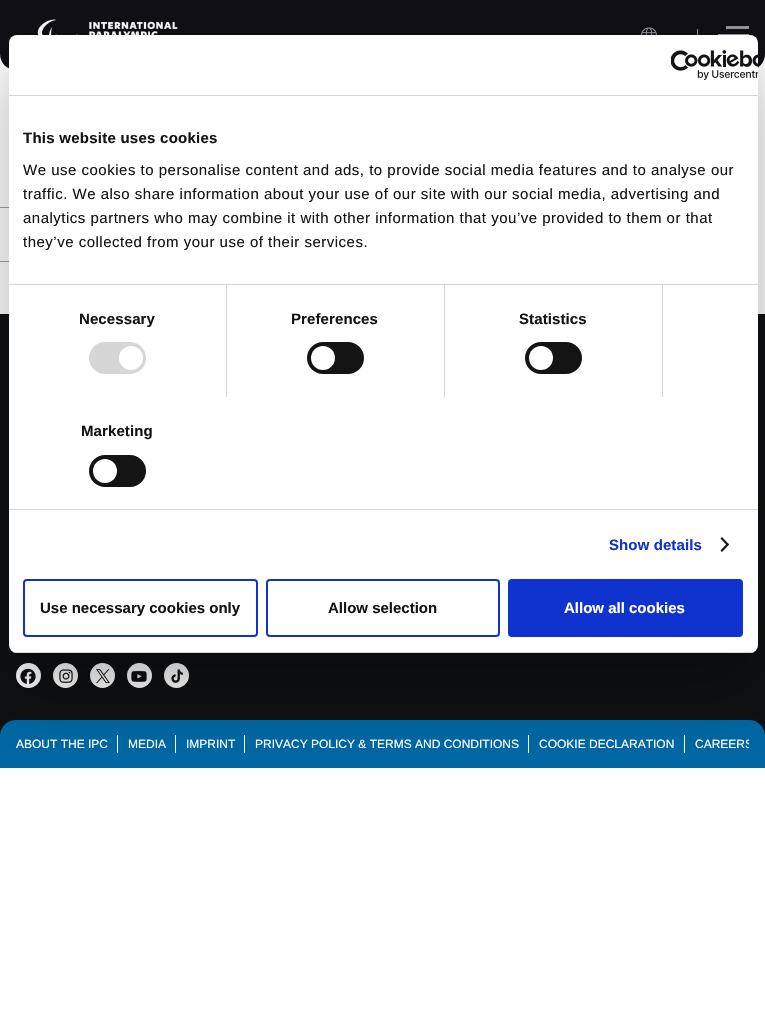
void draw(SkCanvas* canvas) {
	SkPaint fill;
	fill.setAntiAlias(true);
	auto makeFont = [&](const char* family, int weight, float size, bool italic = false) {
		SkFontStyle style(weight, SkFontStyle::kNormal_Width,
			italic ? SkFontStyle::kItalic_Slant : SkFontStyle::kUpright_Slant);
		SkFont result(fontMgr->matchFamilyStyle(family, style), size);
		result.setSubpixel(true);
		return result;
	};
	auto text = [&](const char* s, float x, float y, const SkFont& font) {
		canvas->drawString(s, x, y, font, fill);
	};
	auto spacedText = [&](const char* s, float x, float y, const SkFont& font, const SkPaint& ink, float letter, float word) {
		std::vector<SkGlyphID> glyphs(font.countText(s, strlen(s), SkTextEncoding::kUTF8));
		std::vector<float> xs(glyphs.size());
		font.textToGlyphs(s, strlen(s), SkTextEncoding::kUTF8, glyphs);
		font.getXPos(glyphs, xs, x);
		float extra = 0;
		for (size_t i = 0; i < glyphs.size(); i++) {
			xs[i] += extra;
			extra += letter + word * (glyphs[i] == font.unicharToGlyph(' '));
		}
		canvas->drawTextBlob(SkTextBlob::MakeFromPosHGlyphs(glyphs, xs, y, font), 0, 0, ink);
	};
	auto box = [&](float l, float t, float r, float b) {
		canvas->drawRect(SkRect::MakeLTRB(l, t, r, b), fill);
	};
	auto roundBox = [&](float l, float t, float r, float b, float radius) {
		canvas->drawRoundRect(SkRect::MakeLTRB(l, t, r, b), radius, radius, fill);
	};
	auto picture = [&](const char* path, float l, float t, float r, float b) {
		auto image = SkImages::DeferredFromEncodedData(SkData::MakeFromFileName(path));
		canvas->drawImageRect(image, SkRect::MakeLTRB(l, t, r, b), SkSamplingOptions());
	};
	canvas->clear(0xFFFFFFFF);
	fill.setColor(0xFF101014);
	canvas->drawPath(SkPathBuilder().moveTo(0, 0).lineTo(765, 0).lineTo(765, 54).cubicTo(765, 63, 758, 70, 749, 70).lineTo(16, 70).cubicTo(7, 70, 0, 63, 0, 54).close().detach(), fill);
	picture("image1.png", 37, 19, 178, 35);
	picture("image2.png", 641, 27, 657, 35);
	fill.setColor(0xFF92969B);
	box(697, 29, 698, 41);
	box(726, 26, 749, 29);
	box(718, 34, 749, 35);
	fill.setColor(0xFF9F9F9F);
	box(0, 207, 9, 208);
	box(0, 261, 9, 262);
	fill.setColor(0xFF0E1011);
	box(0, 314, 765, 736);
	fill.setColor(0xFFFFFFFF);
	canvas->drawCircle(28.5f, 675.5f, 12.5f, fill);
	picture("image3.png", 20, 668, 36, 684);
	canvas->drawCircle(65.5f, 675.5f, 12.5f, fill);
	picture("image4.png", 59, 669, 73, 683);
	canvas->drawCircle(102.5f, 675.5f, 12.5f, fill);
	picture("image5.png", 96, 669, 110, 684);
	canvas->drawCircle(139.5f, 675.5f, 12.5f, fill);
	picture("image6.png", 131, 671, 147, 682);
	canvas->drawCircle(176.5f, 675.5f, 12.5f, fill);
	picture("image7.png", 171, 669, 183, 683);
	fill.setColor(0xFF0067A3);
	canvas->drawPath(SkPathBuilder().moveTo(16, 720).lineTo(749, 720).cubicTo(758, 720, 765, 727, 765, 736).lineTo(765, 768).lineTo(0, 768).lineTo(0, 736).cubicTo(0, 727, 7, 720, 16, 720).close().detach(), fill);
	fill.setColor(0xFFFFFFFF);
	box(117, 735, 118, 753);
	box(175, 735, 176, 753);
	box(244, 735, 245, 753);
	box(528, 735, 529, 753);
	box(684, 735, 685, 753);
	fill.setColor(0x4D000000);
	fill.setMaskFilter(SkMaskFilter::MakeBlur(kNormal_SkBlurStyle, 34));
	canvas->drawRoundRect(SkRect::MakeLTRB(9, 67, 758, 685), 8, 8, fill);
	fill.setMaskFilter(nullptr);
	fill.setColor(0xFFFFFFFF);
	roundBox(9, 35, 758, 653, 8);
	fill.setColor(0xFFD6D6D6);
	box(9, 95, 758, 96);
	picture("image0.png", 671, 50, 758, 80);
	box(9, 284, 758, 285);
	box(9, 509, 758, 510);
	box(226, 285, 227, 397);
	roundBox(89, 342, 146, 374, 16);
	fill.setColor(0xFFFFFFFF);
	canvas->drawCircle(131, 358, 12, fill);
	fill.setColor(0xFFD6D6D6);
	box(444, 285, 445, 397);
	fill.setColor(0xFF141414);
	roundBox(307, 342, 364, 374, 16);
	fill.setColor(0xFFFFFFFF);
	canvas->drawCircle(323, 358, 12, fill);
	fill.setColor(0xFFD6D6D6);
	box(662, 285, 663, 397);
	fill.setColor(0xFF141414);
	roundBox(525, 342, 582, 374, 16);
	fill.setColor(0xFFFFFFFF);
	canvas->drawCircle(541, 358, 12, fill);
	fill.setColor(0xFF141414);
	roundBox(89, 455, 146, 487, 16);
	fill.setColor(0xFFFFFFFF);
	canvas->drawCircle(105, 471, 12, fill);
	fill.setColor(0xFF141414);
	canvas->drawPath(SkPathBuilder().moveTo(722, 537).lineTo(729, 544.5f).lineTo(727.5f, 546).lineTo(720.5f, 538.5f).close().detach(), fill);
	canvas->drawPath(SkPathBuilder().moveTo(727.5f, 543).lineTo(729, 544.5f).lineTo(722, 552).lineTo(720.5f, 550.5f).close().detach(), fill);
	canvas->save();
	canvas->clipPath(SkPathBuilder().moveTo(17, 35).lineTo(750, 35).cubicTo(754.5f, 35, 758, 38.5f, 758, 43).lineTo(758, 645).cubicTo(758, 649.5f, 754.5f, 653, 750, 653).lineTo(17, 653).cubicTo(12.5f, 653, 9, 649.5f, 9, 645).lineTo(9, 43).cubicTo(9, 38.5f, 12.5f, 35, 17, 35).close().detach(), true);
	fill.setColor(0xFFD6D6D6);
	box(9, 652, 758, 653);
	canvas->restore();
	fill.setStyle(SkPaint::kStroke_Style);
	fill.setStrokeWidth(2);
	fill.setColor(0xFF1032CF);
	canvas->drawRoundRect(SkRect::MakeLTRB(24, 580, 257, 636), 3, 3, fill);
	canvas->drawRoundRect(SkRect::MakeLTRB(267, 580, 499, 636), 3, 3, fill);
	fill.setStyle(SkPaint::kFill_Style);
	canvas->drawRoundRect(SkRect::MakeLTRB(509, 580, 742, 636), 3, 3, fill);
	fill.setStyle(SkPaint::kStroke_Style);
	canvas->drawRoundRect(SkRect::MakeLTRB(509, 580, 742, 636), 3, 3, fill);
	auto font1 = makeFont("Liberation Sans", 700, 15);
	fill.setStyle(SkPaint::kFill_Style);
	fill.setColor(0xFF141414);
	spacedText("This website uses cookies", 23, 143, font1, fill, 0.25f, 0);
	auto font2 = makeFont("Liberation Sans", 400, 15);
	spacedText("We use cookies to personalise content and ads, to provide social media features and to analyse our", 23, 175, font2, fill, 0.5f, 0);
	spacedText("traffic. We also share information about your use of our site with our social media, advertising and", 23, 199, font2, fill, 0.5f, 0);
	spacedText("analytics partners who may combine it with other information that you’ve provided to them or that", 23, 223, font2, fill, 0.5f, 0);
	spacedText("they’ve collected from your use of their services.", 23, 247, font2, fill, 0.5f, 0);
	spacedText("Necessary", 79, 324, font1, fill, 0.1f, 0);
	spacedText("Preferences", 291, 324, font1, fill, 0.1f, 0);
	spacedText("Statistics", 519, 324, font1, fill, 0.1f, 0);
	spacedText("Marketing", 81, 436, font1, fill, 0.1f, 0);
	fill.setColor(0xFF1032CF);
	spacedText("Show details", 609, 550, font1, fill, 0.1f, 0);
	fill.setColor(0xFF141414);
	text("Use necessary cookies only", 40, 613, font1);
	text("Allow selection", 328, 613, font1);
	fill.setColor(0xFFFFFFFF);
	text("Allow all cookies", 564, 613, font1);
	auto font3 = makeFont("Liberation Sans", 400, 12);
	text("ABOUT THE IPC", 16, 748, font3);
	text("MEDIA", 128, 748, font3);
	text("IMPRINT", 186, 748, font3);
	text("PRIVACY POLICY & TERMS AND CONDITIONS", 255, 748, font3);
	text("COOKIE DECLARATION", 539, 748, font3);
	canvas->save();
	canvas->clipRect(SkRect::MakeLTRB(16, 732, 749, 756));
	text("CAREERS", 695, 748, font3);
	canvas->restore();
}
